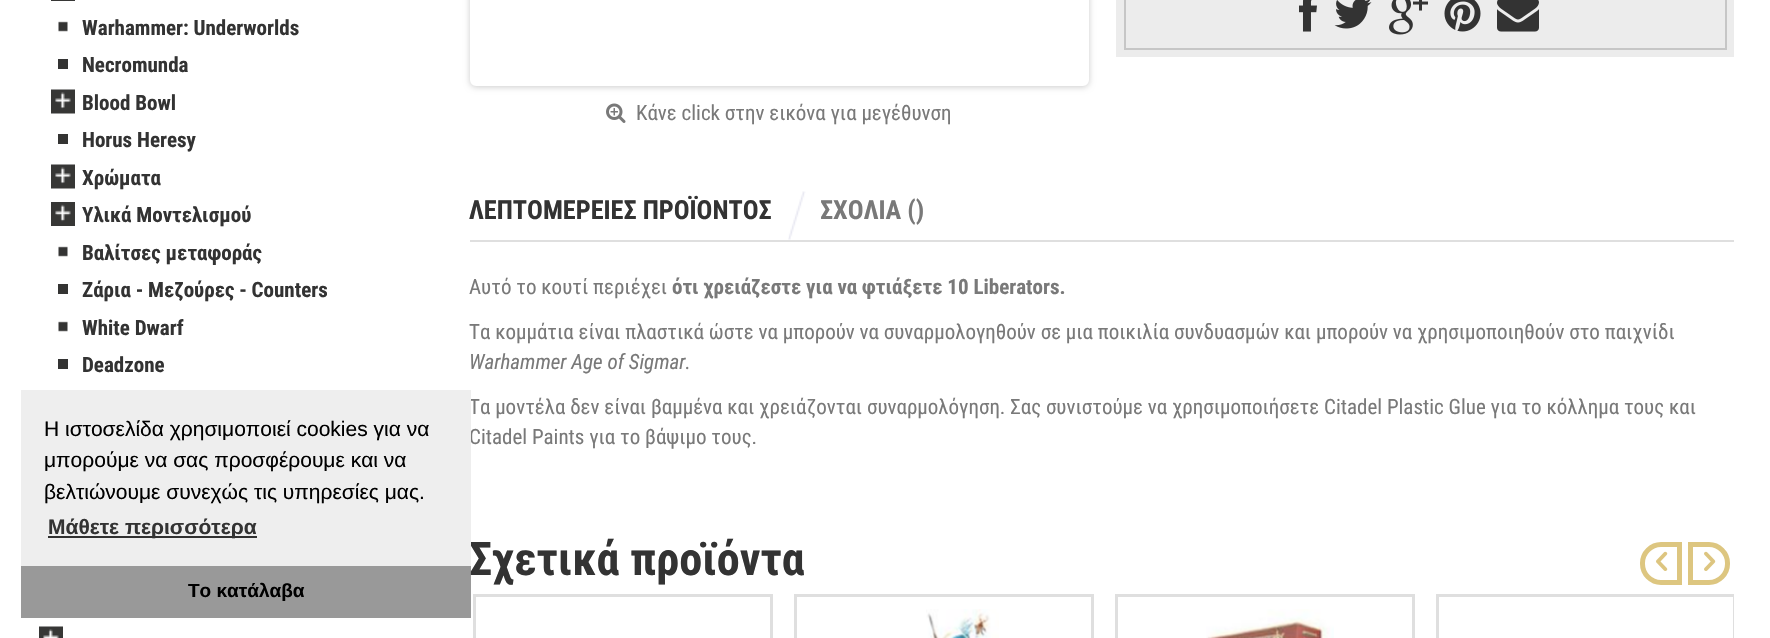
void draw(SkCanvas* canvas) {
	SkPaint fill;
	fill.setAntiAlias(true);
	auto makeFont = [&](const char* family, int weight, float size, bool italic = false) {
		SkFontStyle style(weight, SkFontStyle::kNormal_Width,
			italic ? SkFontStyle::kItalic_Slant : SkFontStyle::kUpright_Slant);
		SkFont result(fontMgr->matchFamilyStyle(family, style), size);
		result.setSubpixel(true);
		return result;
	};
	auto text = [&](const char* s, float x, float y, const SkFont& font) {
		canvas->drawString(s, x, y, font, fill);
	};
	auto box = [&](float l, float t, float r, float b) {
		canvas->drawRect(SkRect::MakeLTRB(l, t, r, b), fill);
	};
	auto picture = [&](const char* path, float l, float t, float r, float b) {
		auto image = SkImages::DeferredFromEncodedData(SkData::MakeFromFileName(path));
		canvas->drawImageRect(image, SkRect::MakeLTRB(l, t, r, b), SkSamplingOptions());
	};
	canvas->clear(0xFFFFFFFF);
	fill.setColor(0xFF373736);
	box(51, 0, 75, 1);
	picture("image0.png", 58, 21, 68, 32);
	fill.setColor(0xFF343433);
	box(58, 59, 68, 69);
	picture("image1.png", 51, 89, 75, 114);
	box(58, 134, 68, 144);
	picture("image1.png", 51, 164, 75, 189);
	picture("image2.png", 51, 202, 75, 226);
	picture("image0.png", 58, 246, 68, 257);
	box(58, 284, 68, 294);
	picture("image0.png", 58, 321, 68, 332);
	box(58, 359, 68, 369);
	picture("image3.png", 39, 626, 63, 638);
	fill.setColor(0xFFECECEC);
	box(1116, 0, 1734, 57);
	fill.setStyle(SkPaint::kStroke_Style);
	fill.setStrokeWidth(2);
	fill.setColor(0xFFC6C6C6);
	canvas->drawRect(SkRect::MakeLTRB(1125, -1, 1726, 49), fill);
	picture("image4.png", 1299, 0, 1317, 32);
	picture("image5.png", 1334, 0, 1372, 29);
	picture("image6.png", 1389, 0, 1428, 35);
	picture("image7.png", 1444, 0, 1481, 32);
	picture("image8.png", 1497, 0, 1539, 32);
	fill.setStyle(SkPaint::kFill_Style);
	fill.setColor(0x33000000);
	fill.setMaskFilter(SkMaskFilter::MakeBlur(kNormal_SkBlurStyle, 3));
	canvas->drawRoundRect(SkRect::MakeLTRB(470, -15, 1089, 87), 6, 6, fill);
	fill.setMaskFilter(nullptr);
	fill.setColor(0xFFFFFFFF);
	canvas->drawRoundRect(SkRect::MakeLTRB(473, -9, 1086, 83), 3, 3, fill);
	fill.setStyle(SkPaint::kStroke_Style);
	fill.setStrokeWidth(6);
	canvas->drawRoundRect(SkRect::MakeLTRB(473, -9, 1086, 83), 3, 3, fill);
	picture("image9.png", 606, 103, 626, 123);
	fill.setStyle(SkPaint::kFill_Style);
	fill.setColor(0xFFDFDFDF);
	box(470, 240, 1734, 242);
	picture("image10.png", 788, 191, 806, 240);
	fill.setStyle(SkPaint::kStroke_Style);
	fill.setStrokeWidth(5);
	fill.setColor(0xFFDDC680);
	canvas->drawPath(SkPathBuilder().moveTo(1661, 544.5f).lineTo(1679.5f, 544.5f).lineTo(1679.5f, 582.5f).lineTo(1661, 582.5f).cubicTo(1651, 582.5f, 1642.5f, 574, 1642.5f, 564).lineTo(1642.5f, 563).cubicTo(1642.5f, 553, 1651, 544.5f, 1661, 544.5f).close().detach(), fill);
	picture("image11.png", 1656, 551, 1668, 571);
	canvas->drawPath(SkPathBuilder().moveTo(1690.5f, 544.5f).lineTo(1709, 544.5f).cubicTo(1719, 544.5f, 1727.5f, 553, 1727.5f, 563).lineTo(1727.5f, 564).cubicTo(1727.5f, 574, 1719, 582.5f, 1709, 582.5f).lineTo(1690.5f, 582.5f).close().detach(), fill);
	picture("image12.png", 1704, 551, 1716, 571);
	fill.setStrokeWidth(3);
	fill.setColor(0xFFDFDFDF);
	canvas->drawRect(SkRect::MakeLTRB(474.5f, 595.5f, 771.5f, 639.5f), fill);
	canvas->drawRect(SkRect::MakeLTRB(795.5f, 595.5f, 1092.5f, 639.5f), fill);
	picture("image13.png", 926, 609, 999, 638);
	canvas->drawRect(SkRect::MakeLTRB(1116.5f, 595.5f, 1413.5f, 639.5f), fill);
	picture("image14.png", 1206, 609, 1334, 638);
	canvas->save();
	canvas->clipRect(SkRect::MakeLTRB(1433, 591, 1734, 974));
	canvas->drawRect(SkRect::MakeLTRB(1437.5f, 595.5f, 1734.5f, 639.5f), fill);
	canvas->restore();
	fill.setStyle(SkPaint::kFill_Style);
	fill.setColor(0xFF999999);
	box(21, 566, 471, 618);
	auto font1 = makeFont("Roboto Condensed", 700, 21);
	fill.setColor(0xFF333333);
	text("Warhammer: Underworlds", 82, 35, font1);
	text("Necromunda", 82, 72, font1);
	text("Blood Bowl", 82, 110, font1);
	text("Horus Heresy", 82, 147, font1);
	text("Χρώματα", 82, 185, font1);
	text("Υλικά Μοντελισμού", 82, 222, font1);
	text("Βαλίτσες μεταφοράς", 82, 260, font1);
	text("Ζάρια - Μεζούρες - Counters", 82, 297, font1);
	text("White Dwarf", 82, 335, font1);
	text("Deadzone", 82, 372, font1);
	auto font2 = makeFont("Roboto Condensed", 400, 21);
	fill.setColor(0xFF797979);
	text("Κάνε click στην εικόνα για μεγέθυνση", 636, 120, font2);
	auto font3 = makeFont("Roboto Condensed", 700, 26.25f);
	fill.setColor(0xFF333333);
	text("ΛΕΠΤΟΜΕΡΕΙΕΣ ΠΡΟΪΟΝΤΟΣ", 469, 219, font3);
	fill.setColor(0xFF797979);
	text("ΣΧΟΛΙΑ ()", 820, 219, font3);
	text("Αυτό το κουτί περιέχει", 469, 294, font2);
	text("ότι χρειάζεστε για να φτιάξετε 10 Liberators.", 672, 294, font1);
	text("Τα κομμάτια είναι πλαστικά ώστε να μπορούν να συναρμολογηθούν σε μια ποικιλία συνδυασμών και μπορούν να χρησιμοποιηθούν στο παιχνίδι", 469, 339, font2);
	auto font4 = makeFont("Roboto Condensed", 400, 21, true);
	text("Warhammer Age of Sigmar.", 469, 369, font4);
	text("Τα μοντέλα δεν είναι βαμμένα και χρειάζονται συναρμολόγηση. Σας συνιστούμε να χρησιμοποιήσετε Citadel Plastic Glue για το κόλλημα τους και", 469, 414, font2);
	text("Citadel Paints για το βάψιμο τους.", 469, 444, font2);
	auto font5 = makeFont("Roboto Condensed", 700, 46.25f);
	fill.setColor(0xFF333333);
	text("Σχετικά προϊόντα", 469, 575, font5);
	fill.setColor(0xFFEEEEEE);
	box(21, 390, 471, 566);
	auto font6 = makeFont("Liberation Sans", 400, 21);
	fill.setColor(0xFF000000);
	text("Η ιστοσελίδα χρησιμοποιεί cookies για να", 44, 436, font6);
	text("μπορούμε να σας προσφέρουμε και να", 44, 467, font6);
	text("βελτιώνουμε συνεχώς τις υπηρεσίες μας.", 44, 499, font6);
	fill.setColor(0xFF303030);
	box(48, 536, 257, 538);
	auto font7 = makeFont("Liberation Sans", 700, 21);
	fill.setColor(0xFF333333);
	text("Μάθετε περισσότερα", 48, 534, font7);
	auto font8 = makeFont("Liberation Sans", 700, 19);
	fill.setColor(0xFF000000);
	text("Το κατάλαβα", 188, 597, font8);
}
